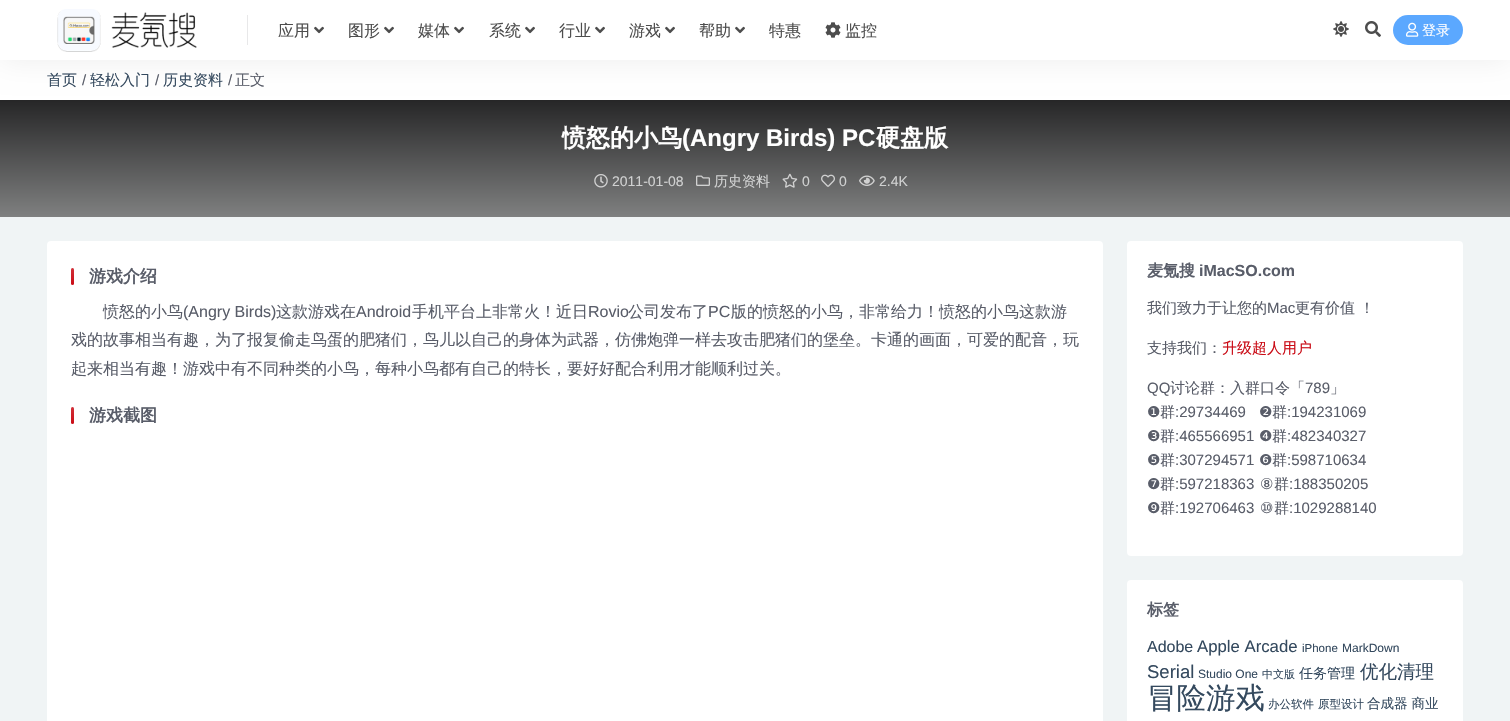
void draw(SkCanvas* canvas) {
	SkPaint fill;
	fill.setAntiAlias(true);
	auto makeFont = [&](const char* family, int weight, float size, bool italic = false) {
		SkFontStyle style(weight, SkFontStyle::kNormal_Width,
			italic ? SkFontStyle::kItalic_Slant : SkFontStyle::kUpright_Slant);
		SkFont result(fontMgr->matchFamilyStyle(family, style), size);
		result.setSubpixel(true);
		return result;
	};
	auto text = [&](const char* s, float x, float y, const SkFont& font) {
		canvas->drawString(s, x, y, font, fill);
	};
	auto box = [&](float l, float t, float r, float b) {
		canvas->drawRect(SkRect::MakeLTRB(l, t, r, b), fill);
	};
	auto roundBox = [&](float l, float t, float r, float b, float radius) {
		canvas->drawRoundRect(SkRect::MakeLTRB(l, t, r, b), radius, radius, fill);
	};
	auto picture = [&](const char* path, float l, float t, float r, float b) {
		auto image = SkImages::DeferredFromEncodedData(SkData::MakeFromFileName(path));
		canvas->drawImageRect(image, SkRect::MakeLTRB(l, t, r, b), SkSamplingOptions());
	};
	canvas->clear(0xFFF0F4F5);
	fill.setColor(0xFFFFFFFF);
	box(0, 60, 1510, 100);
	{
		const SkColor colors[] = {0xFF262627, 0xFF7F8080};
		const float stops[] = {0, 1};
		const SkPoint ends[] = {{755, 100}, {755, 217}};
		fill.setShader(SkGradientShader::MakeLinear(ends, colors, stops, 2, SkTileMode::kClamp));
		fill.setAlpha(255);
	}
	box(0, 100, 1510, 217);
	fill.setShader(nullptr);
	fill.setColor(0x12000000);
	fill.setMaskFilter(SkMaskFilter::MakeBlur(kNormal_SkBlurStyle, 15));
	canvas->drawRect(SkRect::MakeLTRB(0, 0, 1510, 60), fill);
	fill.setMaskFilter(nullptr);
	fill.setColor(0xFFFFFFFF);
	box(0, 0, 1510, 60);
	picture("image0.png", 57, 9, 197, 52);
	fill.setColor(0xFFE8E8E9);
	box(247, 15, 248, 45);
	picture("image1.png", 314, 26, 324, 34);
	picture("image1.png", 384, 26, 394, 34);
	picture("image1.png", 454, 26, 464, 34);
	picture("image1.png", 525, 26, 535, 34);
	picture("image1.png", 595, 26, 605, 34);
	picture("image1.png", 665, 26, 675, 34);
	picture("image1.png", 735, 26, 745, 34);
	picture("image2.png", 825, 22, 841, 38);
	picture("image3.png", 1333, 21, 1349, 37);
	picture("image4.png", 1365, 21, 1381, 37);
	fill.setColor(0xFF5BA8FF);
	roundBox(1393, 15, 1463, 45, 15);
	picture("image5.png", 1406, 22, 1419, 37);
	picture("image6.png", 594, 174, 608, 188);
	picture("image7.png", 696, 175, 710, 186);
	picture("image8.png", 782, 173, 798, 188);
	picture("image9.png", 821, 174, 835, 187);
	picture("image10.png", 859, 175, 875, 186);
	fill.setColor(0xFFFFFFFF);
	roundBox(47, 241, 1103, 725, 4);
	fill.setColor(0xFFCA0C16);
	roundBox(71, 268, 74, 285, 1.5f);
	{
		const SkColor colors[] = {0x26FFFFFF, 0x00FFFFFF};
		const float stops[] = {0, 1};
		const SkPoint ends[] = {{73, 268}, {73, 285}};
		fill.setShader(SkGradientShader::MakeLinear(ends, colors, stops, 2, SkTileMode::kClamp));
		fill.setAlpha(255);
	}
	roundBox(71, 268, 74, 285, 1.5f);
	fill.setShader(nullptr);
	fill.setColor(0xFFCA0C16);
	roundBox(71, 407, 74, 424, 1.5f);
	{
		const SkColor colors[] = {0x26FFFFFF, 0x00FFFFFF};
		const float stops[] = {0, 1};
		const SkPoint ends[] = {{73, 407}, {73, 424}};
		fill.setShader(SkGradientShader::MakeLinear(ends, colors, stops, 2, SkTileMode::kClamp));
		fill.setAlpha(255);
	}
	roundBox(71, 407, 74, 424, 1.5f);
	fill.setShader(nullptr);
	fill.setColor(0xFFFFFFFF);
	roundBox(1127, 241, 1463, 556, 4);
	roundBox(1127, 580, 1463, 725, 4);
	auto font1 = makeFont("WenQuanYi Zen Hei", 500, 16);
	fill.setColor(0xFF4D4D4D);
	text("应用", 278, 36, font1);
	text("图形", 348, 36, font1);
	text("媒体", 418, 36, font1);
	text("系统", 489, 36, font1);
	text("行业", 559, 36, font1);
	text("游戏", 629, 36, font1);
	text("帮助", 699, 36, font1);
	text("特惠", 769, 36, font1);
	text("监控", 845, 36, font1);
	auto font2 = makeFont("WenQuanYi Zen Hei", 500, 14);
	fill.setColor(0xFFFFFFFF);
	text("登录", 1422, 35, font2);
	auto font3 = makeFont("WenQuanYi Zen Hei", 500, 15);
	fill.setColor(0xFF34495E);
	text("首页", 47, 85, font3);
	auto font4 = makeFont("Liberation Sans", 400, 15);
	fill.setColor(0xFF595D69);
	text("/", 82, 85, font4);
	fill.setColor(0xFF34495E);
	text("轻松入门", 90, 85, font3);
	fill.setColor(0xFF595D69);
	text("/", 155, 85, font4);
	fill.setColor(0xFF34495E);
	text("历史资料", 163, 85, font3);
	fill.setColor(0xFF595D69);
	text("/", 228, 85, font4);
	text("正文", 235, 85, font3);
	auto font5 = makeFont("WenQuanYi Zen Hei", 700, 24);
	fill.setColor(0xFFFFFFFF);
	text("愤怒的小鸟", 562, 146, font5);
	auto font6 = makeFont("Liberation Sans", 700, 24);
	text("(Angry Birds) PC", 682, 146, font6);
	text("硬盘版", 876, 146, font5);
	auto font7 = makeFont("Liberation Sans", 400, 14);
	fill.setColor(0xFFD0D1D1);
	text("2011-01-08", 612, 186, font7);
	text("历史资料", 714, 186, font2);
	text("0", 802, 186, font7);
	text("0", 839, 186, font7);
	text("2.4K", 879, 186, font7);
	auto font8 = makeFont("WenQuanYi Zen Hei", 700, 17);
	fill.setColor(0xFF595D69);
	text("游戏介绍", 89, 282, font8);
	text("愤怒的小鸟", 103, 317, font1);
	auto font9 = makeFont("Liberation Sans", 400, 16);
	text("(Angry Birds)", 183, 317, font9);
	text("这款游戏在", 276, 317, font1);
	text("Android", 356, 317, font9);
	text("手机平台上非常火！近日", 412, 317, font1);
	text("Rovio", 588, 317, font9);
	text("公司发布了", 628, 317, font1);
	text("PC", 708, 317, font9);
	text("版的愤怒的小鸟，非常给力！愤怒的小鸟这款游", 731, 317, font1);
	text("戏的故事相当有趣，为了报复偷走鸟蛋的肥猪们，鸟儿以自己的身体为武器，仿佛炮弹一样去攻击肥猪们的堡垒。卡通的画面，可爱的配音，玩", 71, 345, font1);
	text("起来相当有趣！游戏中有不同种类的小鸟，每种小鸟都有自己的特长，要好好配合利用才能顺利过关。", 71, 374, font1);
	text("游戏截图", 89, 421, font8);
	auto font10 = makeFont("WenQuanYi Zen Hei", 700, 16);
	text("麦氪搜", 1147, 276, font10);
	auto font11 = makeFont("Liberation Sans", 700, 16);
	text("iMacSO.com", 1199, 276, font11);
	text("我们致力于让您的", 1147, 313, font3);
	text("Mac", 1267, 313, font4);
	text("更有价值 ！", 1295, 313, font3);
	text("支持我们：", 1147, 353, font3);
	fill.setColor(0xFFCA0C16);
	text("升级超人用户", 1222, 353, font3);
	fill.setColor(0xFF595D69);
	text("QQ", 1147, 393, font4);
	text("讨论群：入群口令「", 1170, 393, font3);
	text("789", 1305, 393, font4);
	text("」", 1330, 393, font3);
	auto font12 = makeFont("DejaVu Sans", 400, 15);
	text("❶", 1147, 417, font12);
	text("群", 1160, 417, font3);
	text(":29734469", 1175, 417, font4);
	text("❷", 1259, 417, font12);
	text("群", 1272, 417, font3);
	text(":194231069", 1287, 417, font4);
	text("❸", 1147, 441, font12);
	text("群", 1160, 441, font3);
	text(":465566951", 1175, 441, font4);
	text("❹", 1259, 441, font12);
	text("群", 1272, 441, font3);
	text(":482340327", 1287, 441, font4);
	text("❺", 1147, 465, font12);
	text("群", 1160, 465, font3);
	text(":307294571", 1175, 465, font4);
	text("❻", 1259, 465, font12);
	text("群", 1272, 465, font3);
	text(":598710634", 1287, 465, font4);
	text("❼", 1147, 489, font12);
	text("群", 1160, 489, font3);
	text(":597218363", 1175, 489, font4);
	text("⑧", 1260, 489, font12);
	text("群", 1274, 489, font3);
	text(":188350205", 1289, 489, font4);
	text("❾", 1147, 513, font12);
	text("群", 1160, 513, font3);
	text(":192706463", 1175, 513, font4);
	text("⑩", 1260, 513, font12);
	text("群", 1274, 513, font3);
	text(":1029288140", 1289, 513, font4);
	text("标签", 1147, 615, font10);
	fill.setColor(0xFF34495E);
	text("Adobe", 1147, 652, font9);
	auto font13 = makeFont("Liberation Sans", 400, 16.75f);
	text("Apple Arcade", 1197, 652, font13);
	auto font14 = makeFont("Liberation Sans", 400, 11.5f);
	text("iPhone", 1302, 652, font14);
	auto font15 = makeFont("Liberation Sans", 400, 12);
	text("MarkDown", 1342, 652, font15);
	auto font16 = makeFont("Liberation Sans", 400, 18.5f);
	text("Serial", 1147, 678, font16);
	text("Studio One", 1198, 678, font15);
	auto font17 = makeFont("WenQuanYi Zen Hei", 500, 11);
	text("中文版", 1262, 678, font17);
	text("任务管理", 1299, 678, font2);
	auto font18 = makeFont("WenQuanYi Zen Hei", 500, 18.5f);
	text("优化清理", 1360, 678, font18);
	auto font19 = makeFont("WenQuanYi Zen Hei", 500, 29.5f);
	text("冒险游戏", 1147, 708, font19);
	auto font20 = makeFont("WenQuanYi Zen Hei", 500, 11.5f);
	text("办公软件", 1268, 708, font20);
	text("原型设计", 1318, 708, font20);
	auto font21 = makeFont("WenQuanYi Zen Hei", 500, 13.5f);
	text("合成器 商业", 1367, 708, font21);
}
